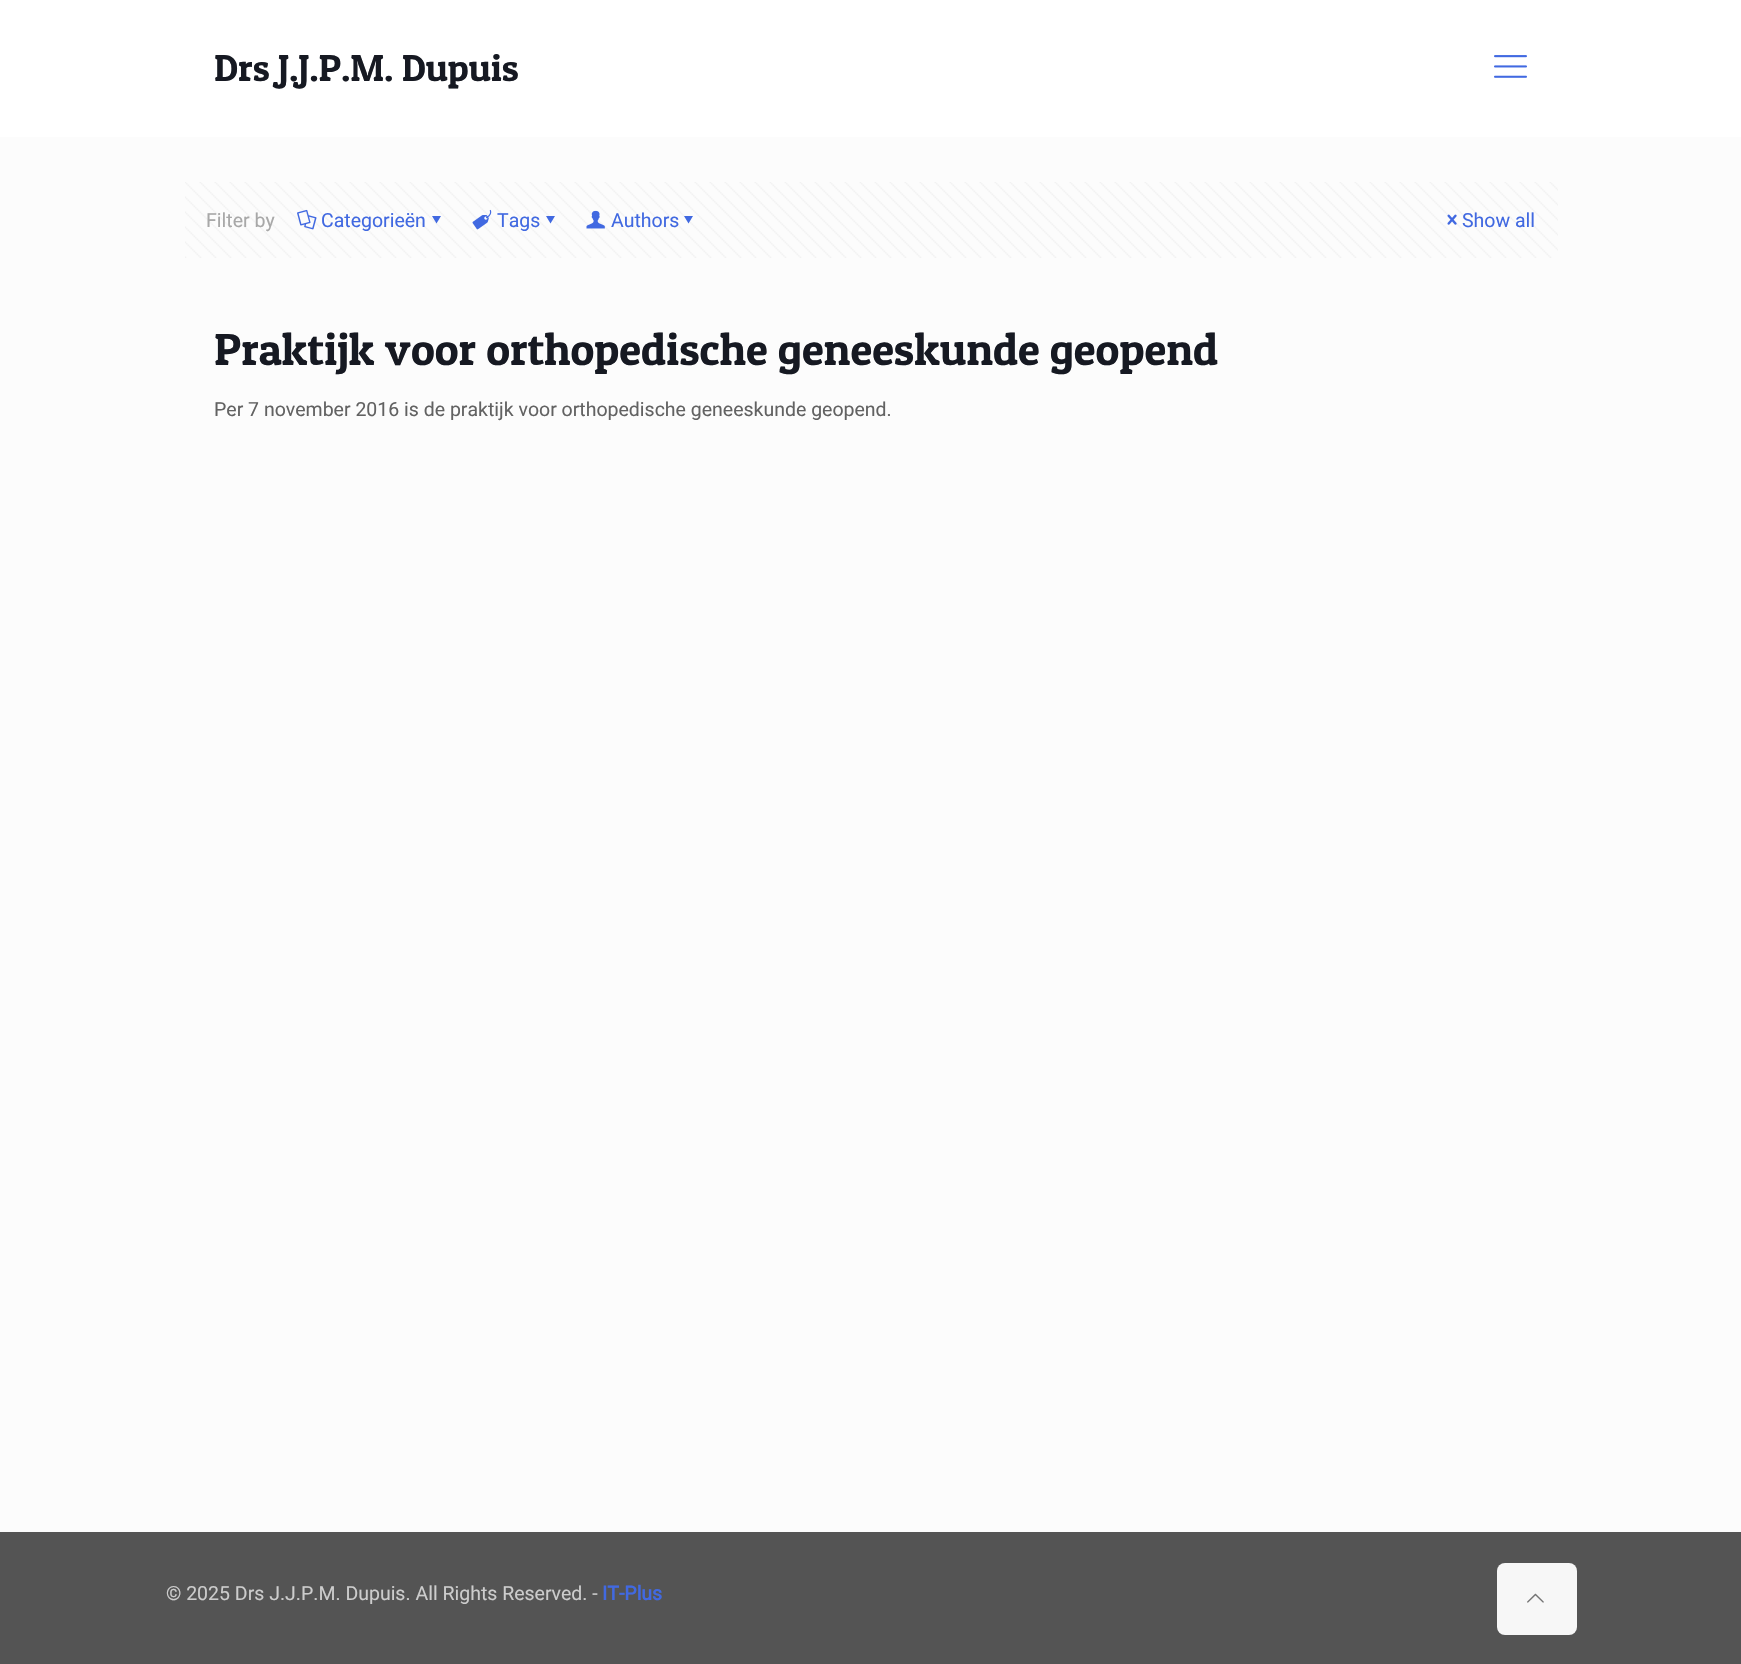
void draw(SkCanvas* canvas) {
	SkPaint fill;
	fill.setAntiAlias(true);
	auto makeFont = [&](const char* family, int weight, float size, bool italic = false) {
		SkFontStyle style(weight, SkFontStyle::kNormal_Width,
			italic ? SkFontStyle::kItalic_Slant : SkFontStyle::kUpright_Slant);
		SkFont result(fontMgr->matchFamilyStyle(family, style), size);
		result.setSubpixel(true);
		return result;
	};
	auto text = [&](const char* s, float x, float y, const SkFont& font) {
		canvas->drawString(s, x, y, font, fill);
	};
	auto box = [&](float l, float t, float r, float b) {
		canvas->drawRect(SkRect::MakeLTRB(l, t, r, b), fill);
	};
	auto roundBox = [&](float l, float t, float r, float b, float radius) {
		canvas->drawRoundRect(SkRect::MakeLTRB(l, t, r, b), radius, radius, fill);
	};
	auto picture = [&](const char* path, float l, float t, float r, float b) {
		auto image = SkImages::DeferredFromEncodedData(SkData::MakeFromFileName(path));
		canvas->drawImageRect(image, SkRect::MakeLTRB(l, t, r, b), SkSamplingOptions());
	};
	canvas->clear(0xFFFCFCFC);
	fill.setColor(0xFFFFFFFF);
	box(0, 0, 1741, 137);
	picture("image0.png", 1494, 55, 1527, 78);
	picture("image1.png", 185, 182, 1558, 258);
	picture("image2.png", 297, 209, 317, 230);
	fill.setColor(0xFF4169E1);
	canvas->drawPath(SkPathBuilder().moveTo(441, 216).lineTo(436.5f, 223.5f).lineTo(432, 216).close().detach(), fill);
	picture("image3.png", 472, 209, 492, 230);
	canvas->drawPath(SkPathBuilder().moveTo(555, 216).lineTo(550.5f, 223.5f).lineTo(546, 216).close().detach(), fill);
	picture("image4.png", 586, 210, 605, 229);
	canvas->drawPath(SkPathBuilder().moveTo(693, 216).lineTo(688.5f, 223.5f).lineTo(684, 216).close().detach(), fill);
	picture("image5.png", 1447, 214, 1457, 225);
	fill.setColor(0xFF545454);
	box(0, 1532, 1741, 1664);
	fill.setColor(0xFFF7F7F7);
	roundBox(1497, 1563, 1577, 1635, 8);
	picture("image6.png", 1527, 1593, 1544, 1603);
	auto font1 = makeFont("Patua One", 400, 37.5f);
	fill.setColor(0xFF161922);
	text("Drs J.J.P.M. Dupuis", 214, 81, font1);
	auto font2 = makeFont("Roboto", 400, 19.5f);
	fill.setColor(0xFFA8A8A8);
	text("Filter by", 206, 227, font2);
	fill.setColor(0xFF4169E1);
	text("Categorieën", 321, 227, font2);
	text("Tags", 497, 227, font2);
	text("Authors", 611, 227, font2);
	text("Show all", 1462, 227, font2);
	auto font3 = makeFont("Patua One", 400, 45);
	fill.setColor(0xFF161922);
	text("Praktijk voor orthopedische geneeskunde geopend", 214, 365, font3);
	fill.setColor(0xFF626262);
	text("Per 7 november 2016 is de praktijk voor orthopedische geneeskunde geopend.", 214, 416, font2);
	fill.setColor(0xFFCCCCCC);
	text("© 2025 Drs J.J.P.M. Dupuis. All Rights Reserved. -", 166, 1600, font2);
	auto font4 = makeFont("Roboto", 700, 19.5f);
	fill.setColor(0xFF4169E1);
	text("IT-Plus", 602, 1600, font4);
}
